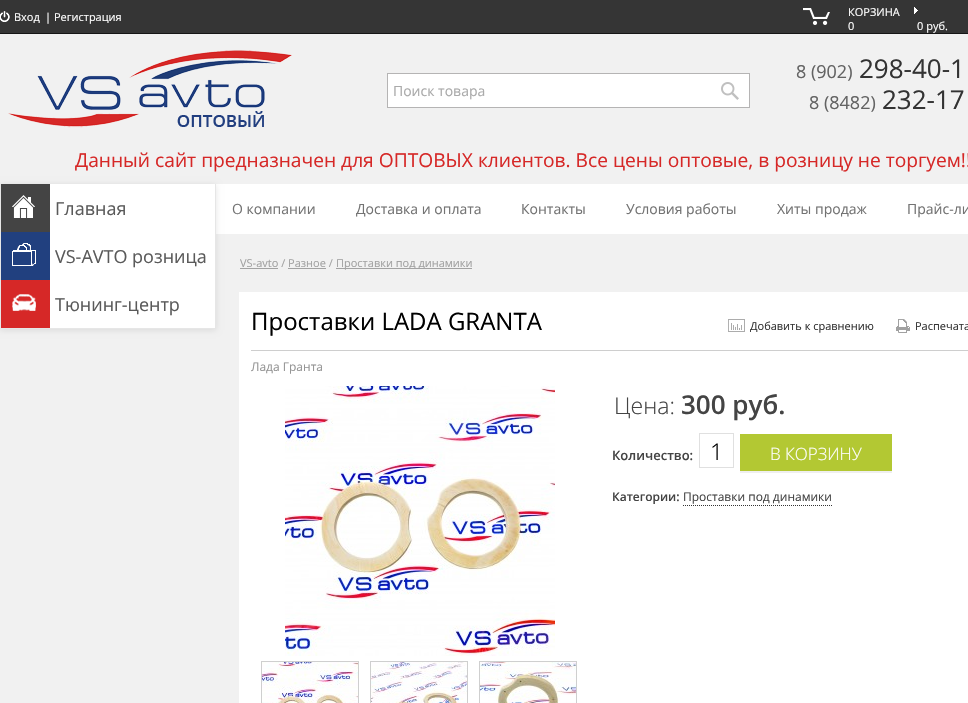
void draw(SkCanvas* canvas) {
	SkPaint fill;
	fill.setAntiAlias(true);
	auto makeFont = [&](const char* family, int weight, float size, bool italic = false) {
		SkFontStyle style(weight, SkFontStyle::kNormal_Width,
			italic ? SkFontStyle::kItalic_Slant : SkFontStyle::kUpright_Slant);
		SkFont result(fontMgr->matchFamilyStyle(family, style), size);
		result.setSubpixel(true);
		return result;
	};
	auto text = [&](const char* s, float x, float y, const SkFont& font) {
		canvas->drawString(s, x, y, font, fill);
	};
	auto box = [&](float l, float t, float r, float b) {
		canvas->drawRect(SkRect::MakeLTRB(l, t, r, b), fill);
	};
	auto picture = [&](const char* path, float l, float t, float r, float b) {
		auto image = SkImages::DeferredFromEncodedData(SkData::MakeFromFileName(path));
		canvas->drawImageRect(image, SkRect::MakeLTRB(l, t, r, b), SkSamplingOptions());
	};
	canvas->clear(0xFFF1F1F1);
	fill.setColor(0xFF353535);
	box(0, 0, 968, 33);
	fill.setColor(0xFF161616);
	box(0, 33, 968, 34);
	picture("image0.png", 0, 11, 10, 22);
	picture("image1.png", 803, 8, 830, 25);
	picture("image2.png", 914, 7, 918, 14);
	picture("image3.png", 8, 50, 292, 128);
	fill.setColor(0xFFFFFFFF);
	canvas->drawRect(SkRect::MakeLTRB(387.5f, 73.5f, 749.5f, 107.5f), fill);
	fill.setStyle(SkPaint::kStroke_Style);
	fill.setStrokeWidth(1);
	fill.setColor(0xFFB5B4B4);
	canvas->drawRect(SkRect::MakeLTRB(387.5f, 73.5f, 749.5f, 107.5f), fill);
	picture("image4.png", 721, 82, 739, 100);
	fill.setStyle(SkPaint::kFill_Style);
	fill.setColor(0xFFFFFFFF);
	box(216, 184, 968, 234);
	fill.setColor(0x1A000000);
	fill.setMaskFilter(SkMaskFilter::MakeBlur(kNormal_SkBlurStyle, 3));
	canvas->drawRect(SkRect::MakeLTRB(0, 185, 216, 330), fill);
	fill.setMaskFilter(nullptr);
	fill.setColor(0xFFFFFFFF);
	box(50, 184, 215, 328);
	fill.setColor(0xFFE6E6E6);
	box(215, 184, 216, 329);
	box(0, 328, 216, 329);
	box(0, 184, 1, 329);
	fill.setColor(0xFF444444);
	box(1, 184, 50, 232);
	picture("image5.png", 12, 195, 35, 218);
	fill.setColor(0xFF21407F);
	box(1, 232, 50, 280);
	picture("image6.png", 12, 243, 36, 266);
	fill.setColor(0xFFD62827);
	box(1, 280, 50, 328);
	picture("image7.png", 12, 294, 36, 311);
	fill.setColor(0xFFFFFFFF);
	box(239, 292, 968, 703);
	fill.setColor(0xFFCECECE);
	box(251, 350, 968, 351);
	picture("image8.png", 728, 319, 745, 332);
	picture("image9.png", 896, 319, 910, 333);
	picture("image10.png", 285, 386, 555, 656);
	fill.setStyle(SkPaint::kStroke_Style);
	fill.setColor(0xFFCFCFCF);
	canvas->drawRect(SkRect::MakeLTRB(261.5f, 661.5f, 358.5f, 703.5f), fill);
	picture("image11.png", 262, 662, 358, 703);
	canvas->drawRect(SkRect::MakeLTRB(370.5f, 661.5f, 467.5f, 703.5f), fill);
	picture("image12.png", 371, 662, 467, 703);
	canvas->drawRect(SkRect::MakeLTRB(479.5f, 661.5f, 576.5f, 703.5f), fill);
	picture("image13.png", 480, 662, 576, 703);
	fill.setColor(0xFFE0E0E0);
	canvas->drawRect(SkRect::MakeLTRB(699.5f, 433.5f, 733.5f, 467.5f), fill);
	fill.setStyle(SkPaint::kFill_Style);
	fill.setColor(0xFFB3C833);
	box(740, 434, 892, 471);
	fill.setColor(0xFFEFEFEF);
	box(740, 471, 892, 473);
	fill.setStyle(SkPaint::kStroke_Style);
	fill.setColor(0xFF333333);
	fill.setPathEffect(SkDashPathEffect::Make({{1, 1}}, 0));
	canvas->drawPath(SkPathBuilder().moveTo(683, 505.5f).lineTo(832, 505.5f).detach(), fill);
	fill.setPathEffect(nullptr);
	fill.setStyle(SkPaint::kFill_Style);
	fill.setColor(0xFFA2A2A2);
	box(240, 268, 278, 269);
	box(336, 268, 472, 269);
	box(288, 268, 326, 269);
	auto font1 = makeFont("Open Sans", 400, 11);
	fill.setColor(0xFFFFFFFF);
	text("Вход", 14, 21, font1);
	text("| Регистрация", 45, 21, font1);
	text("КОРЗИНА", 848, 16, font1);
	text("0", 848, 30, font1);
	text("0 руб.", 917, 30, font1);
	auto font2 = makeFont("Open Sans", 400, 14);
	fill.setColor(0xFFAAAAAA);
	text("Поиск товара", 393, 96, font2);
	auto font3 = makeFont("Open Sans", 400, 18);
	fill.setColor(0xFF636363);
	text("8 (902)", 796, 78, font3);
	auto font4 = makeFont("Open Sans", 400, 26);
	fill.setColor(0xFF333333);
	text("298-40-1", 859, 78, font4);
	fill.setColor(0xFF636363);
	text("8 (8482)", 809, 109, font3);
	fill.setColor(0xFF333333);
	text("232-17", 882, 109, font4);
	auto font5 = makeFont("Open Sans", 400, 19.2f);
	fill.setColor(0xFFD62827);
	text("Данный сайт предназначен для ОПТОВЫХ клиентов. Все цены оптовые, в розницу не торгуем!!", 75, 167, font5);
	fill.setColor(0xFF5A5A5A);
	text("Главная", 55, 215, font3);
	text("VS-AVTO розница", 55, 263, font3);
	text("Тюнинг-центр", 55, 311, font3);
	auto font6 = makeFont("Open Sans", 400, 24);
	fill.setColor(0xFF000000);
	text("Проставки LADA GRANTA", 251, 330, font6);
	fill.setColor(0xFF333333);
	text("Добавить к сравнению", 750, 330, font1);
	text("Распечата", 915, 330, font1);
	auto font7 = makeFont("Open Sans", 400, 12);
	fill.setColor(0xFF949494);
	text("Лада Гранта", 251, 371, font7);
	auto font8 = makeFont("Open Sans", 300, 23);
	fill.setColor(0xFF444444);
	text("Цена:", 614, 414, font8);
	auto font9 = makeFont("Open Sans", 600, 26);
	text("300 руб.", 681, 414, font9);
	auto font10 = makeFont("Open Sans", 600, 13);
	text("Количество:", 612, 460, font10);
	fill.setColor(0xFF000000);
	text("1", 710, 460, font8);
	auto font11 = makeFont("Open Sans", 300, 17);
	fill.setColor(0xFFFFFFFF);
	text("В КОРЗИНУ", 770, 460, font11);
	auto font12 = makeFont("Open Sans", 600, 12);
	fill.setColor(0xFF444444);
	text("Категории:", 612, 501, font12);
	text("Проставки под динамики", 683, 501, font7);
	fill.setColor(0xFFA2A2A2);
	text("VS-avto / Разное /", 240, 267, font1);
	text("Проставки под динамики", 336, 267, font1);
	fill.setColor(0xFF737373);
	text("О компании", 232, 214, font2);
	text("Доставка и оплата", 356, 214, font2);
	text("Контакты", 521, 214, font2);
	text("Условия работы", 626, 214, font2);
	text("Хиты продаж", 777, 214, font2);
	text("Прайс-ли", 907, 214, font2);
}
